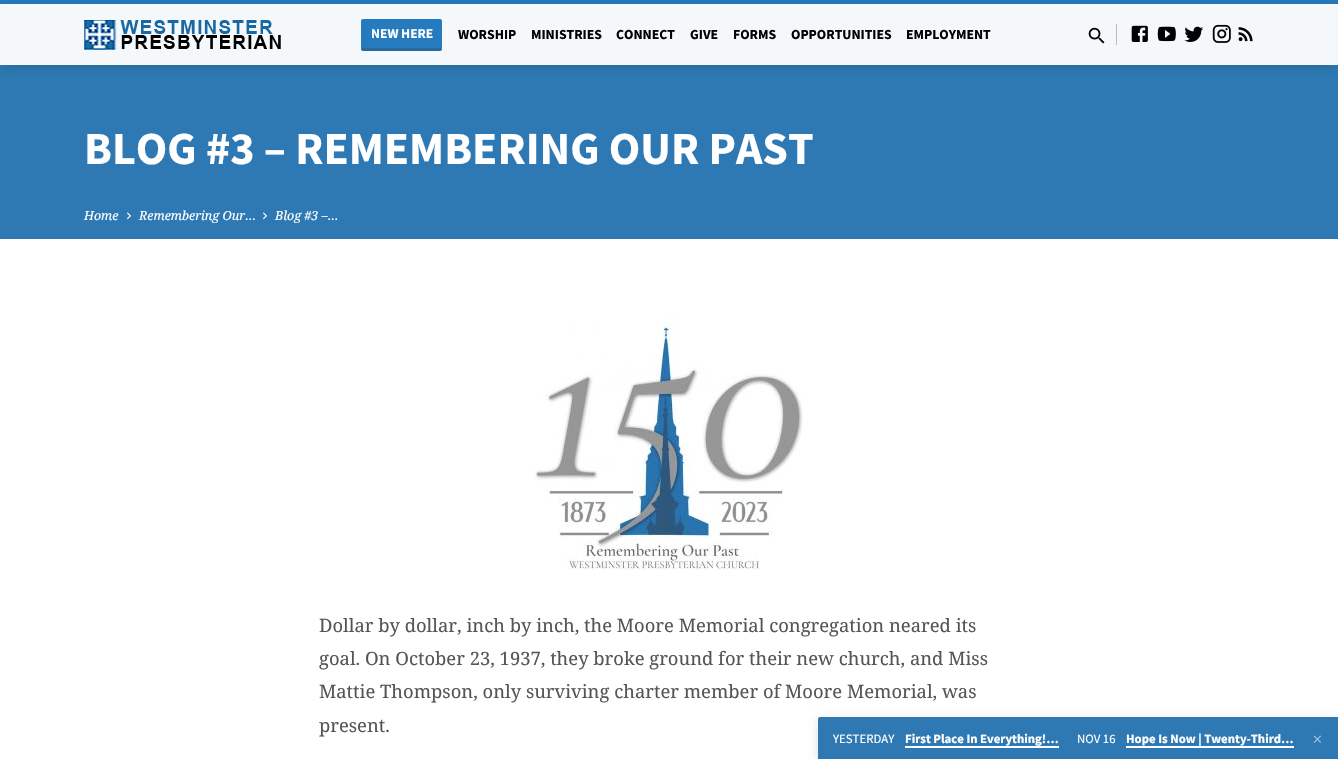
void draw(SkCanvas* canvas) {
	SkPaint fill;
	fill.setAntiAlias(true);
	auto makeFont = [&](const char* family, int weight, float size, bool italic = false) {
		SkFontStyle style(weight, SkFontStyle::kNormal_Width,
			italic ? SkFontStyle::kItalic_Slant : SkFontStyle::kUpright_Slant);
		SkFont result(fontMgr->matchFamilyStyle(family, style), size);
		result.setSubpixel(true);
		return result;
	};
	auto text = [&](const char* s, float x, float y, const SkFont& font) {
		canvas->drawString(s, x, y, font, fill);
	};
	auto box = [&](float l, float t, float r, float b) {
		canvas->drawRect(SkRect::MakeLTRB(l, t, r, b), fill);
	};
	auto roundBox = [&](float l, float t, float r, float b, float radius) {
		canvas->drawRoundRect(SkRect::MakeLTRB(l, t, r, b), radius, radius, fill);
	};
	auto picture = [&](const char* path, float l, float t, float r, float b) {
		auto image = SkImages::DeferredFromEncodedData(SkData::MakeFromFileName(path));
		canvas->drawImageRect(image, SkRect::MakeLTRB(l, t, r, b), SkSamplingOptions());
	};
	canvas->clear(0xFFFFFFFF);
	fill.setColor(0xFF267BBD);
	box(0, 0, 1338, 4);
	fill.setColor(0xFFF5F8FB);
	box(0, 4, 1338, 65);
	fill.setColor(0xFF2E79B3);
	box(0, 65, 1338, 239);
	canvas->save();
	canvas->clipPath(SkPathBuilder(SkPathFillType::kEvenOdd).moveTo(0, 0).lineTo(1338, 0).lineTo(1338, 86).lineTo(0, 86).close().moveTo(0, 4).lineTo(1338, 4).lineTo(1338, 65).lineTo(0, 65).close().detach(), true);
	fill.setColor(0x24000000);
	fill.setMaskFilter(SkMaskFilter::MakeBlur(kNormal_SkBlurStyle, 6));
	canvas->drawRect(SkRect::MakeLTRB(0, 6, 1338, 67), fill);
	fill.setMaskFilter(nullptr);
	canvas->restore();
	picture("image0.png", 84, 20, 281, 50);
	fill.setColor(0xFF267BBE);
	roundBox(361, 19, 442, 51, 2);
	fill.setColor(0x40323232);
	box(362, 48, 441, 51);
	picture("image1.png", 1088, 27, 1105, 44);
	fill.setColor(0xFFBBBBBB);
	box(1116, 24, 1117, 45);
	picture("image2.png", 1131, 25, 1148, 42);
	picture("image3.png", 1157, 26, 1176, 42);
	picture("image4.png", 1184, 26, 1203, 42);
	picture("image5.png", 1212, 24, 1231, 43);
	picture("image6.png", 1238, 27, 1253, 42);
	picture("image7.png", 127, 212, 131, 220);
	picture("image7.png", 263, 212, 267, 220);
	picture("image8.png", 535, 314, 803, 570);
	fill.setColor(0x1F000000);
	fill.setMaskFilter(SkMaskFilter::MakeBlur(kNormal_SkBlurStyle, 5));
	canvas->drawRoundRect(SkRect::MakeLTRB(818, 719, 1338, 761), 2, 2, fill);
	fill.setMaskFilter(nullptr);
	fill.setColor(0xFF3182C1);
	canvas->drawPath(SkPathBuilder().moveTo(820, 717).lineTo(1338, 717).lineTo(1338, 759).lineTo(818, 759).lineTo(818, 719).cubicTo(818, 718, 819, 717, 820, 717).close().detach(), fill);
	fill.setColor(0x12000000);
	box(818, 717, 1338, 759);
	fill.setColor(0xFFFFFFFF);
	box(905, 746, 1059, 748);
	box(1126, 746, 1294, 748);
	picture("image9.png", 1313, 735, 1321, 743);
	auto font1 = makeFont("Source Sans Pro", 700, 13.5f);
	text("NEW HERE", 371, 38, font1);
	auto font2 = makeFont("Source Sans Pro", 700, 13.75f);
	fill.setColor(0xFF000000);
	text("WORSHIP", 458, 39, font2);
	text("MINISTRIES", 531, 39, font2);
	text("CONNECT", 616, 39, font2);
	text("GIVE", 690, 39, font2);
	text("FORMS", 733, 39, font2);
	text("OPPORTUNITIES", 791, 39, font2);
	text("EMPLOYMENT", 906, 39, font2);
	auto font3 = makeFont("Source Sans Pro", 700, 46.1f);
	fill.setColor(0xFFFFFFFF);
	text("BLOG #3 – REMEMBERING OUR PAST", 84, 164, font3);
	auto font4 = makeFont("Noto Serif", 400, 12.5f, true);
	text("Home", 84, 220, font4);
	text("Remembering Our…", 139, 220, font4);
	text("Blog #3 –…", 275, 220, font4);
	auto font5 = makeFont("Noto Serif", 400, 18.4f);
	fill.setColor(0xFF555555);
	text("Dollar by dollar, inch by inch, the Moore Memorial congregation neared its", 319, 632, font5);
	text("goal. On October 23, 1937, they broke ground for their new church, and Miss", 319, 665, font5);
	text("Mattie Thompson, only surviving charter member of Moore Memorial, was", 319, 698, font5);
	text("present.", 319, 732, font5);
	auto font6 = makeFont("Source Sans Pro", 400, 12.75f);
	fill.setColor(0xFFFFFFFF);
	text("YESTERDAY", 833, 743, font6);
	auto font7 = makeFont("Source Sans Pro", 700, 12.75f);
	text("First Place In Everything!…", 905, 743, font7);
	text("NOV 16", 1077, 743, font6);
	text("Hope Is Now | Twenty-Third…", 1126, 743, font7);
}
